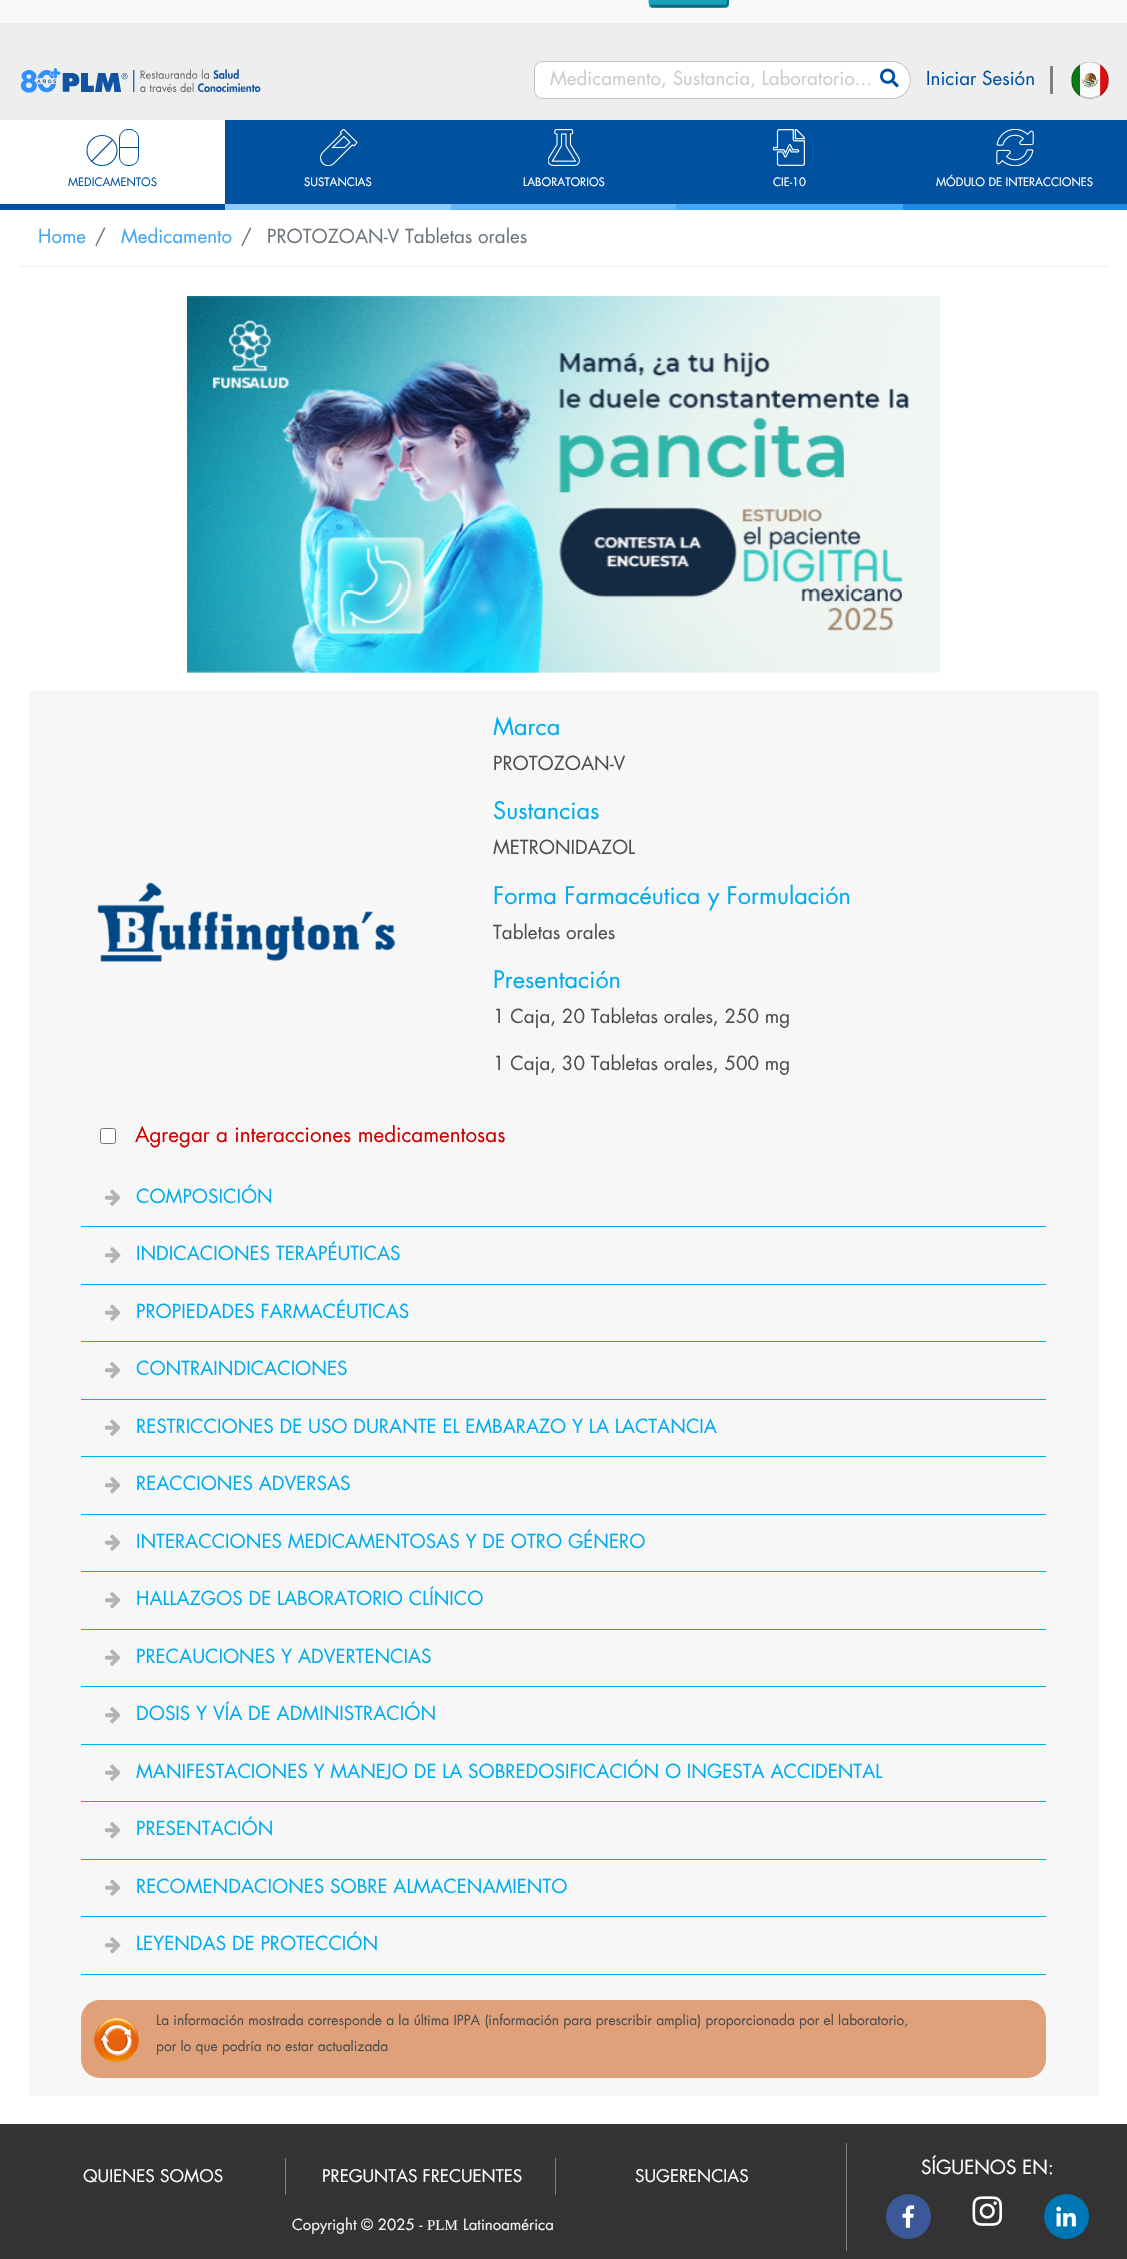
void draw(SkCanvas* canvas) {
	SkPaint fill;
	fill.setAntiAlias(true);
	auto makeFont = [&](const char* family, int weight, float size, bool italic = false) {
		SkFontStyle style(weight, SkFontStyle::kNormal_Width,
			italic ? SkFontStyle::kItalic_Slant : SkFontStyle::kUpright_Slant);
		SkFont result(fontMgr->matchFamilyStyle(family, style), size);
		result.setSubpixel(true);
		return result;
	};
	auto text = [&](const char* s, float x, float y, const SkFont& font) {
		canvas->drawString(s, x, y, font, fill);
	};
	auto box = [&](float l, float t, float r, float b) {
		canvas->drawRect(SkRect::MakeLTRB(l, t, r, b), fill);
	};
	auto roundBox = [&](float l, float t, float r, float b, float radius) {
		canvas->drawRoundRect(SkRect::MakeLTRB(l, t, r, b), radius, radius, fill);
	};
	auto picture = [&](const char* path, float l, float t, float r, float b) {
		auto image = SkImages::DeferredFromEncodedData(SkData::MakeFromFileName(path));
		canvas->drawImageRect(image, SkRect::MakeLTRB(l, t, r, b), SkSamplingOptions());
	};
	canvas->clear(0xFFFFFFFF);
	fill.setColor(0xFFEEEEEE);
	box(0, 23, 1127, 120);
	fill.setColor(0xFFF9F9F9);
	box(0, 0, 1127, 23);
	fill.setColor(0xFF17A2B8);
	roundBox(649, -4, 729, 8, 4);
	fill.setStyle(SkPaint::kStroke_Style);
	fill.setStrokeWidth(2.5f);
	fill.setColor(0xFF0F6C7B);
	canvas->drawPath(SkPathBuilder().moveTo(727, -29.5f).cubicTo(728.5f, -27.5f, 727.5f, -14.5f, 727.5f, -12).cubicTo(727.5f, 8.5f, 732, 6, 713, 6).lineTo(652.5f, 6).lineTo(650.5f, 5.5f).detach(), fill);
	fill.setColor(0xFF17A2B8);
	canvas->drawPath(SkPathBuilder().moveTo(650.5f, 5.5f).cubicTo(649, 3.5f, 650, -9, 650, -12).cubicTo(650, -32.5f, 645.5f, -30, 664.5f, -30).lineTo(725, -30).lineTo(727, -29.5f).detach(), fill);
	picture("image0.png", 20, 68, 261, 93);
	fill.setStyle(SkPaint::kFill_Style);
	fill.setColor(0xFFFFFFFF);
	canvas->drawPath(SkPathBuilder().moveTo(543, 61).lineTo(869, 61).lineTo(869, 99).lineTo(543, 99).cubicTo(538, 99, 534, 95, 534, 90).lineTo(534, 70).cubicTo(534, 65, 538, 61, 543, 61).close().detach(), fill);
	fill.setColor(0xFFC3C3C3);
	canvas->drawPath(SkPathBuilder(SkPathFillType::kEvenOdd).moveTo(542, 61).lineTo(869, 61).lineTo(869, 99).lineTo(542, 99).cubicTo(538, 99, 534, 95, 534, 90).lineTo(534, 70).cubicTo(534, 65, 538, 61, 542, 61).close().moveTo(542, 62).lineTo(869, 62).lineTo(869, 98).lineTo(542, 98).cubicTo(538, 98, 535, 94, 535, 90).lineTo(535, 70).cubicTo(535, 66, 538, 62, 542, 62).close().detach(), fill);
	fill.setColor(0xFFFFFFFF);
	canvas->drawPath(SkPathBuilder().moveTo(869, 61).lineTo(892, 61).cubicTo(902.5f, 61, 911, 69.5f, 911, 80).cubicTo(911, 90.5f, 902.5f, 99, 892, 99).lineTo(869, 99).close().detach(), fill);
	fill.setColor(0xFFC3C3C3);
	canvas->drawPath(SkPathBuilder(SkPathFillType::kEvenOdd).moveTo(869, 61).lineTo(892, 61).cubicTo(903, 61, 911, 70, 911, 80).cubicTo(911, 90, 903, 99, 892, 99).lineTo(869, 99).close().moveTo(869, 62).lineTo(892, 62).cubicTo(902, 62, 910, 70, 910, 80).cubicTo(910, 90, 902, 98, 892, 98).lineTo(869, 98).close().detach(), fill);
	picture("image1.png", 880, 68, 899, 88);
	fill.setColor(0xFF808080);
	box(1050, 66, 1053, 94);
	picture("image2.png", 1071, 62, 1109, 99);
	fill.setColor(0xFF0052A1);
	box(225, 120, 1127, 204);
	box(0, 204, 225, 210);
	fill.setStyle(SkPaint::kStroke_Style);
	fill.setStrokeWidth(1.1f);
	canvas->drawCircle(102, 150.5f, 15, fill);
	fill.setStrokeWidth(1);
	canvas->drawRoundRect(SkRect::MakeLTRB(119.5f, 129.5f, 138.5f, 165.5f), 8.5f, 8.5f, fill);
	fill.setStrokeWidth(1.1f);
	canvas->drawPath(SkPathBuilder().moveTo(91.5f, 161.5f).lineTo(112.5f, 140).detach(), fill);
	fill.setStyle(SkPaint::kFill_Style);
	box(120, 147, 138, 148);
	fill.setColor(0xFF90CAF9);
	box(225, 204, 451, 210);
	picture("image3.png", 320, 129, 358, 166);
	fill.setColor(0xFF64B5F6);
	box(451, 204, 676, 210);
	picture("image4.png", 548, 129, 580, 166);
	fill.setColor(0xFF42A5F5);
	box(676, 204, 903, 210);
	picture("image5.png", 773, 129, 805, 166);
	fill.setColor(0xFF1E88E5);
	box(903, 204, 1127, 210);
	picture("image6.png", 996, 129, 1034, 166);
	fill.setColor(0xFFEEEEEE);
	box(19, 266, 1109, 267);
	picture("image7.png", 187, 296, 940, 673);
	fill.setColor(0xFFF7F7F7);
	box(29, 691, 1099, 2096);
	picture("image8.png", 95, 882, 395, 963);
	fill.setColor(0xFFFFFFFF);
	canvas->drawRoundRect(SkRect::MakeLTRB(100.5f, 1128.5f, 115.5f, 1143.5f), 2, 2, fill);
	fill.setStyle(SkPaint::kStroke_Style);
	fill.setStrokeWidth(1);
	fill.setColor(0xFF767676);
	canvas->drawRoundRect(SkRect::MakeLTRB(100.5f, 1128.5f, 115.5f, 1143.5f), 2, 2, fill);
	fill.setStyle(SkPaint::kFill_Style);
	fill.setColor(0xFF00ACED);
	box(81, 1226, 1046, 1227);
	picture("image9.png", 105, 1189, 121, 1206);
	box(81, 1284, 1046, 1285);
	picture("image10.png", 105, 1247, 121, 1264);
	box(81, 1341, 1046, 1342);
	picture("image9.png", 105, 1304, 121, 1321);
	box(81, 1399, 1046, 1400);
	picture("image10.png", 105, 1362, 121, 1379);
	box(81, 1456, 1046, 1457);
	picture("image9.png", 105, 1419, 121, 1436);
	box(81, 1514, 1046, 1515);
	picture("image10.png", 105, 1477, 121, 1494);
	box(81, 1571, 1046, 1572);
	picture("image9.png", 105, 1534, 121, 1551);
	box(81, 1629, 1046, 1630);
	picture("image10.png", 105, 1592, 121, 1609);
	box(81, 1686, 1046, 1687);
	picture("image9.png", 105, 1649, 121, 1666);
	box(81, 1744, 1046, 1745);
	picture("image10.png", 105, 1707, 121, 1724);
	box(81, 1801, 1046, 1802);
	picture("image9.png", 105, 1764, 121, 1781);
	box(81, 1859, 1046, 1860);
	picture("image10.png", 105, 1822, 121, 1839);
	box(81, 1916, 1046, 1917);
	picture("image9.png", 105, 1879, 121, 1896);
	box(81, 1974, 1046, 1975);
	picture("image10.png", 105, 1937, 121, 1954);
	fill.setColor(0xFFE0A079);
	roundBox(81, 2000, 1046, 2078, 19);
	picture("image11.png", 94, 2017, 139, 2062);
	fill.setColor(0xFF333333);
	box(0, 2124, 1127, 2259);
	fill.setColor(0xFF808080);
	box(846, 2143, 847, 2251);
	fill.setColor(0xFF3B5998);
	canvas->drawCircle(908.5f, 2216.5f, 22.5f, fill);
	picture("image12.png", 902, 2205, 915, 2228);
	picture("image13.png", 972, 2196, 1003, 2226);
	fill.setColor(0xFF0077B5);
	canvas->drawCircle(1066.5f, 2216.5f, 22.5f, fill);
	picture("image14.png", 1056, 2206, 1076, 2227);
	fill.setColor(0xFF808080);
	box(285, 2158, 286, 2195);
	box(555, 2158, 556, 2195);
	auto font1 = makeFont("Futura", 400, 18.75f);
	fill.setColor(0xFFCCCCCC);
	text("Medicamento, Sustancia, Laboratorio...", 550, 85, font1);
	fill.setColor(0xFF0052A1);
	text("Iniciar Sesión", 926, 85, font1);
	auto font2 = makeFont("Futura", 400, 11.25f);
	text("MEDICAMENTOS", 68, 186, font2);
	fill.setColor(0xFFFFFFFF);
	text("SUSTANCIAS", 304, 186, font2);
	text("LABORATORIOS", 523, 186, font2);
	text("CIE-10", 773, 186, font2);
	text("MÓDULO DE INTERACCIONES", 936, 186, font2);
	fill.setColor(0xFF42A5F5);
	text("Home", 38, 243, font1);
	fill.setColor(0xFF6C757D);
	text("/", 95, 243, font1);
	fill.setColor(0xFF42A5F5);
	text("Medicamento", 121, 243, font1);
	fill.setColor(0xFF6C757D);
	text("/", 241, 243, font1);
	text("PROTOZOAN-V Tabletas orales", 267, 243, font1);
	auto font3 = makeFont("Futura", 400, 23.5f);
	fill.setColor(0xFF00ACED);
	text("Marca", 493, 735, font3);
	fill.setColor(0xFF4D4D4D);
	text("PROTOZOAN-V", 493, 770, font1);
	fill.setColor(0xFF00ACED);
	text("Sustancias", 493, 819, font3);
	fill.setColor(0xFF4D4D4D);
	text("METRONIDAZOL", 493, 854, font1);
	fill.setColor(0xFF00ACED);
	text("Forma Farmacéutica y Formulación", 493, 904, font3);
	fill.setColor(0xFF4D4D4D);
	text("Tabletas orales", 493, 939, font1);
	fill.setColor(0xFF00ACED);
	text("Presentación", 493, 988, font3);
	fill.setColor(0xFF4D4D4D);
	text("1 Caja, 20 Tabletas orales, 250 mg", 493, 1023, font1);
	text("1 Caja, 30 Tabletas orales, 500 mg", 493, 1070, font1);
	auto font4 = makeFont("Futura", 400, 20.6f);
	fill.setColor(0xFFCC0000);
	text("Agregar a interacciones medicamentosas", 135, 1142, font4);
	fill.setColor(0xFF00ACED);
	text("COMPOSICIÓN", 136, 1203, font1);
	text("INDICACIONES TERAPÉUTICAS", 136, 1260, font1);
	text("PROPIEDADES FARMACÉUTICAS", 136, 1318, font1);
	text("CONTRAINDICACIONES", 136, 1375, font1);
	text("RESTRICCIONES DE USO DURANTE EL EMBARAZO Y LA LACTANCIA", 136, 1433, font1);
	text("REACCIONES ADVERSAS", 136, 1490, font1);
	text("INTERACCIONES MEDICAMENTOSAS Y DE OTRO GÉNERO", 136, 1548, font1);
	text("HALLAZGOS DE LABORATORIO CLÍNICO", 136, 1605, font1);
	text("PRECAUCIONES Y ADVERTENCIAS", 136, 1663, font1);
	text("DOSIS Y VÍA DE ADMINISTRACIÓN", 136, 1720, font1);
	text("MANIFESTACIONES Y MANEJO DE LA SOBREDOSIFICACIÓN O INGESTA ACCIDENTAL", 136, 1778, font1);
	text("PRESENTACIÓN", 136, 1835, font1);
	text("RECOMENDACIONES SOBRE ALMACENAMIENTO", 136, 1893, font1);
	text("LEYENDAS DE PROTECCIÓN", 136, 1950, font1);
	auto font5 = makeFont("Futura", 400, 13.75f);
	fill.setColor(0xFF4D4D4D);
	text("La información mostrada corresponde a la última IPPA (información para prescribir amplia) proporcionada por el laboratorio,", 156, 2025, font5);
	text("por lo que podría no estar actualizada", 156, 2051, font5);
	fill.setColor(0xFFFFFFFF);
	text("SÍGUENOS EN:", 921, 2174, font1);
	auto font6 = makeFont("Futura", 400, 16.9f);
	text("QUIENES SOMOS", 83, 2182, font6);
	text("PREGUNTAS FRECUENTES", 322, 2182, font6);
	text("SUGERENCIAS", 635, 2182, font6);
	auto font7 = makeFont("Futura", 400, 15);
	fill.setColor(0xFFF3F3F3);
	text("Copyright © 2025 -", 292, 2230, font7);
	auto font8 = makeFont("Liberation Serif", 400, 15);
	text("PLM", 427, 2230, font8);
	text("Latinoamérica", 463, 2230, font7);
}
